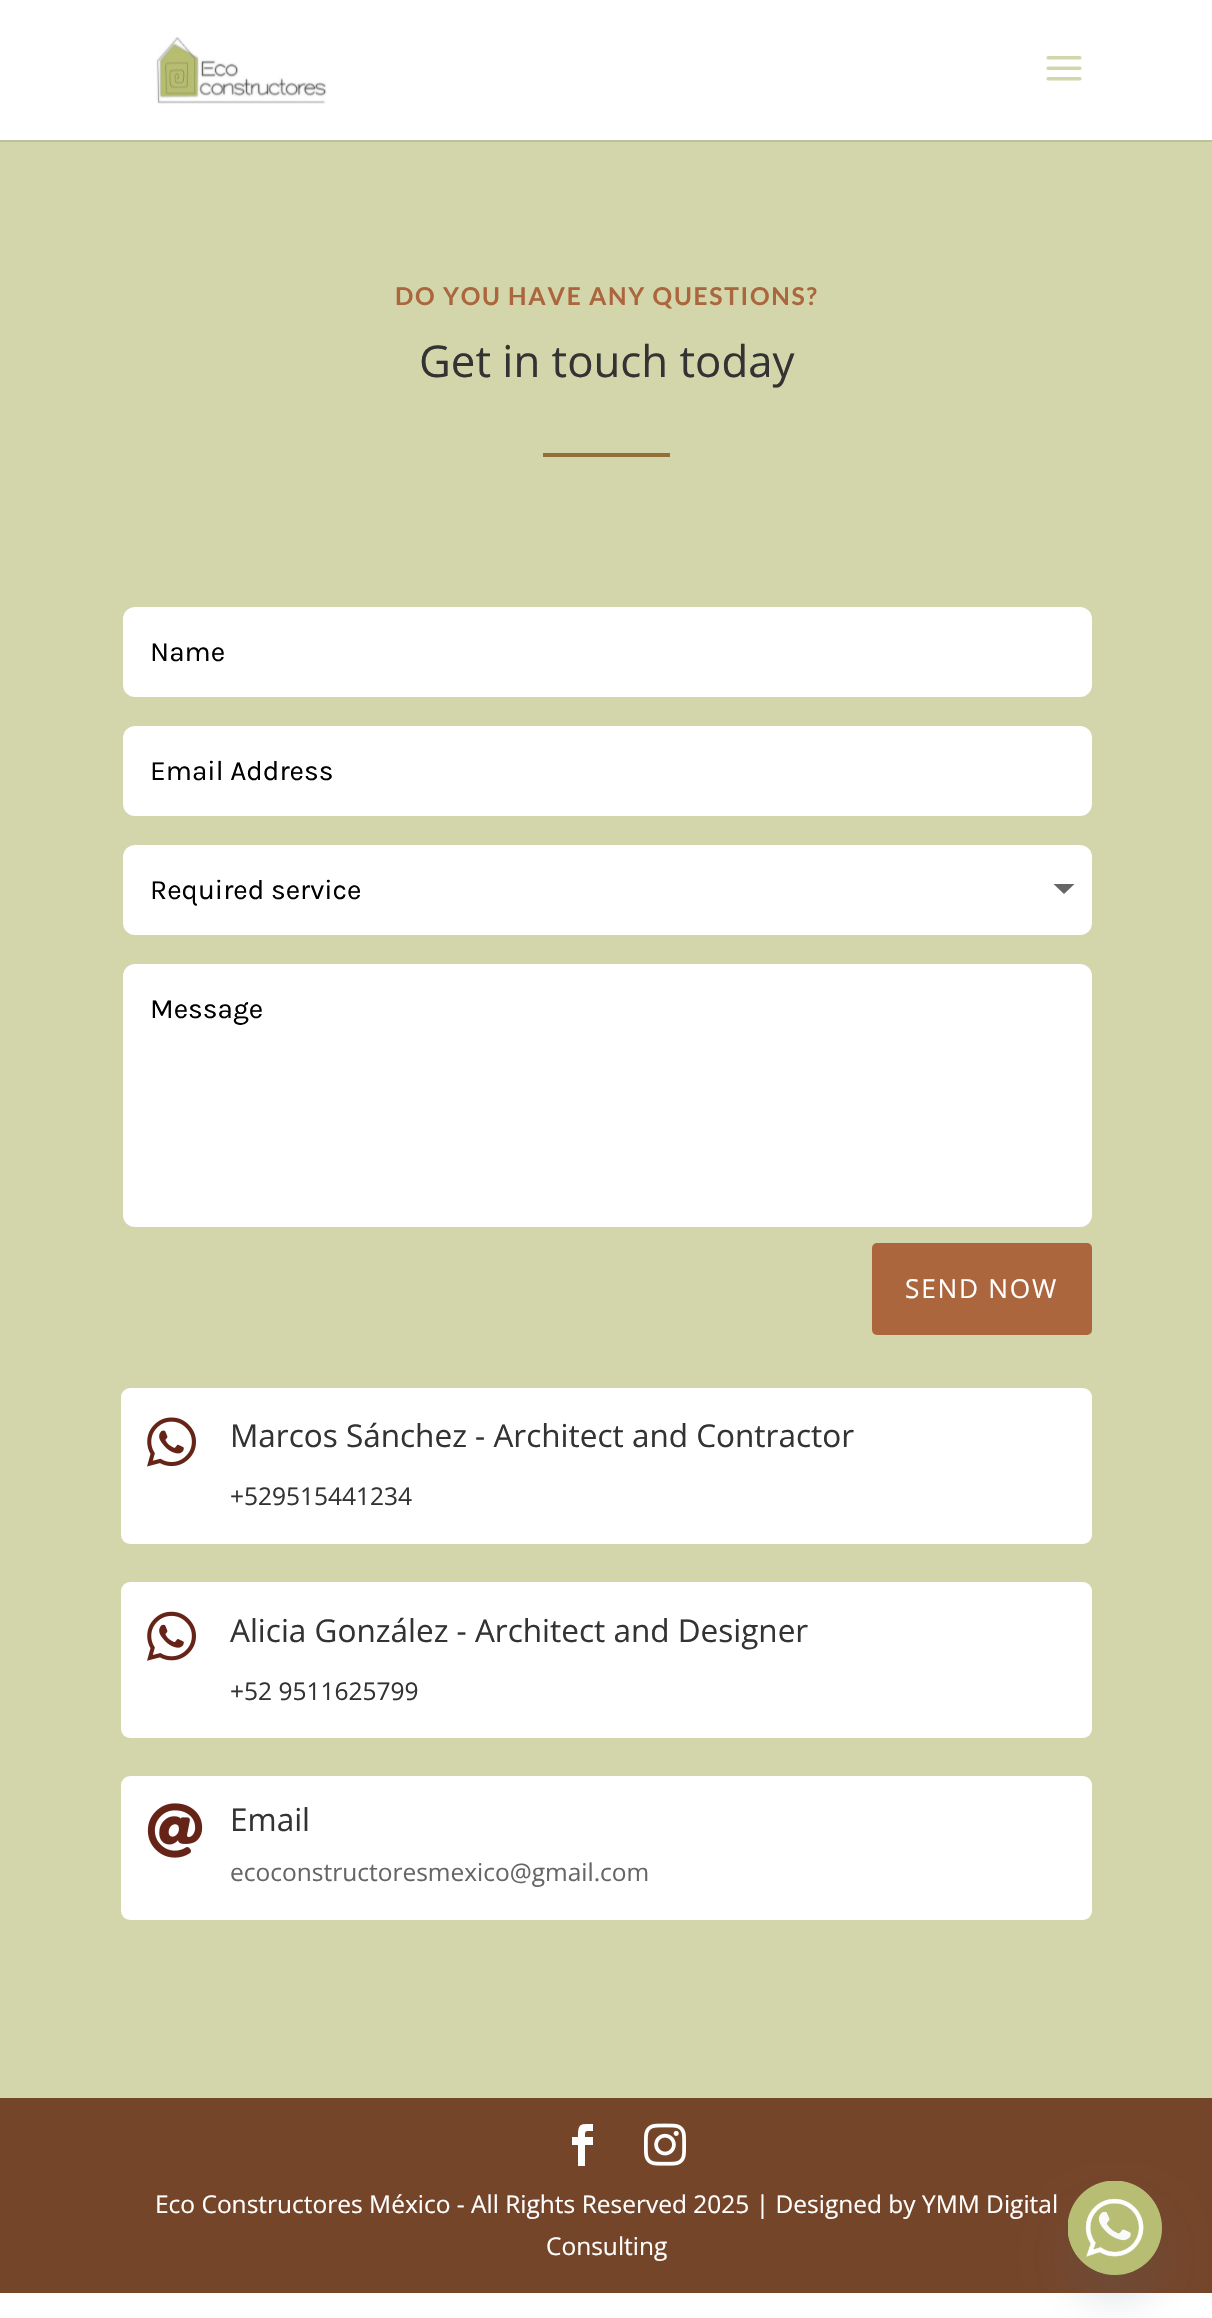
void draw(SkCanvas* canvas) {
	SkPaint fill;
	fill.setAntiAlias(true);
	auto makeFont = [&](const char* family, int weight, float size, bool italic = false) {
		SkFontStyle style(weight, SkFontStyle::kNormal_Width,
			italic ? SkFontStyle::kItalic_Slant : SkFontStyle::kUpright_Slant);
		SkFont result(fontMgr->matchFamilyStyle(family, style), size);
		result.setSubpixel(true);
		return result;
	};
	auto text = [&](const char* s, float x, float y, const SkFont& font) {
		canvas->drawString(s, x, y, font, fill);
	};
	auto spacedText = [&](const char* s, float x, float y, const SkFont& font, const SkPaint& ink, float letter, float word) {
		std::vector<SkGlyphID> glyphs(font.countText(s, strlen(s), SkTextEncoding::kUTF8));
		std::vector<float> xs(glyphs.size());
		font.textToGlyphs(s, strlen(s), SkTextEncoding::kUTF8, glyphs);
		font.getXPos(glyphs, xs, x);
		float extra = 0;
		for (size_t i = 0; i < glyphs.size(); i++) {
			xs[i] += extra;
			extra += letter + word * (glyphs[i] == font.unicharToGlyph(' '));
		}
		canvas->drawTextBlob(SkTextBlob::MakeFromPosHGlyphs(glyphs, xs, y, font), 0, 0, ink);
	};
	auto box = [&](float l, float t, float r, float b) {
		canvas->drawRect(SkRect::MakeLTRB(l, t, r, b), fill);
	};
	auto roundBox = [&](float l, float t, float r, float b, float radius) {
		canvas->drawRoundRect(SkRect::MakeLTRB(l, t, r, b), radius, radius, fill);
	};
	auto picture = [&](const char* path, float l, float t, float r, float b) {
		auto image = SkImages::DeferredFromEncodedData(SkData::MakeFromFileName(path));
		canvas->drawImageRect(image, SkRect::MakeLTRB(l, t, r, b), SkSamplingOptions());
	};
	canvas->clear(0xFFFFFFFF);
	fill.setColor(0xFFBDC199);
	canvas->drawPath(SkPathBuilder().moveTo(0, 140).lineTo(0, 142).lineTo(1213, 142).lineTo(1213, 2).lineTo(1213, 140).close().detach(), fill);
	picture("image0.png", 156, 36, 327, 104);
	picture("image1.png", 1046, 56, 1082, 81);
	fill.setColor(0xFFD2D6AA);
	box(0, 142, 1212, 2098);
	fill.setColor(0xFF926E38);
	box(543, 453, 670, 457);
	fill.setColor(0xFFFFFFFF);
	roundBox(123, 607, 1092, 697, 12);
	roundBox(123, 726, 1092, 816, 12);
	roundBox(123, 845, 1092, 935, 12);
	fill.setColor(0xFF666666);
	canvas->drawPath(SkPathBuilder().moveTo(1053.5f, 884).lineTo(1074.5f, 884).lineTo(1064, 894).close().detach(), fill);
	fill.setColor(0xFFFFFFFF);
	roundBox(123, 964, 1092, 1227, 12);
	fill.setColor(0xFFAC663E);
	roundBox(872, 1243, 1092, 1335, 5);
	fill.setColor(0xFFFFFFFF);
	roundBox(121, 1388, 1092, 1544, 9);
	picture("image2.png", 147, 1417, 196, 1467);
	roundBox(121, 1582, 1092, 1738, 9);
	picture("image3.png", 147, 1611, 196, 1661);
	roundBox(121, 1776, 1092, 1920, 9);
	picture("image4.png", 147, 1803, 203, 1858);
	fill.setColor(0xFF75452A);
	box(0, 2098, 1212, 2293);
	fill.setColor(0xFFFFFFFF);
	canvas->drawPath(SkPathBuilder().moveTo(578, 2166).lineTo(585, 2166).lineTo(585, 2145).lineTo(593, 2145).lineTo(593, 2137).lineTo(585, 2137).cubicTo(585, 2130, 585, 2131, 593, 2131).lineTo(593, 2124).cubicTo(580, 2124, 578, 2123, 578, 2137).lineTo(572, 2137).lineTo(572, 2145).lineTo(578, 2145).close().detach(), fill);
	picture("image5.png", 644, 2123, 686, 2166);
	fill.setColor(0x2949687E);
	fill.setMaskFilter(SkMaskFilter::MakeBlur(kNormal_SkBlurStyle, 21));
	canvas->drawRoundRect(SkRect::MakeLTRB(1068, 2209, 1162, 2303), 47, 47, fill);
	fill.setMaskFilter(nullptr);
	fill.setColor(0xFFB7BD72);
	canvas->drawCircle(1115, 2228, 47, fill);
	picture("image6.png", 1068, 2181, 1162, 2275);
	auto font1 = makeFont("Lato", 700, 24.5f);
	fill.setColor(0xFFAC663E);
	spacedText("DO YOU HAVE ANY QUESTIONS?", 395, 305, font1, fill, 1.75f, 0);
	auto font2 = makeFont("Open Sans", 400, 43.75f);
	fill.setColor(0xFF333333);
	text("Get in touch today", 419, 377, font2);
	auto font3 = makeFont("Karla", 400, 28);
	fill.setColor(0xFF000000);
	text("Name", 150, 661, font3);
	text("Email Address", 150, 780, font3);
	text("Required service", 150, 899, font3);
	text("Message", 150, 1018, font3);
	auto font4 = makeFont("Open Sans", 400, 26.25f);
	fill.setColor(0xFFFFFFFF);
	spacedText("SEND NOW", 905, 1298, font4, fill, 1.75f, 0);
	auto font5 = makeFont("Open Sans", 400, 31.5f);
	fill.setColor(0xFF333333);
	text("Marcos Sánchez - Architect and Contractor", 230, 1447, font5);
	auto font6 = makeFont("Open Sans", 400, 24.5f);
	text("+529515441234", 230, 1505, font6);
	text("Alicia González - Architect and Designer", 230, 1642, font5);
	text("+52 9511625799", 230, 1700, font6);
	text("Email", 230, 1831, font5);
	fill.setColor(0xFF666666);
	text("ecoconstructoresmexico@gmail.com", 230, 1881, font6);
	fill.setColor(0xFFFFFFFF);
	text("Eco Constructores México - All Rights Reserved 2025 | Designed by YMM Digital", 155, 2213, font6);
	text("Consulting", 546, 2255, font6);
}
